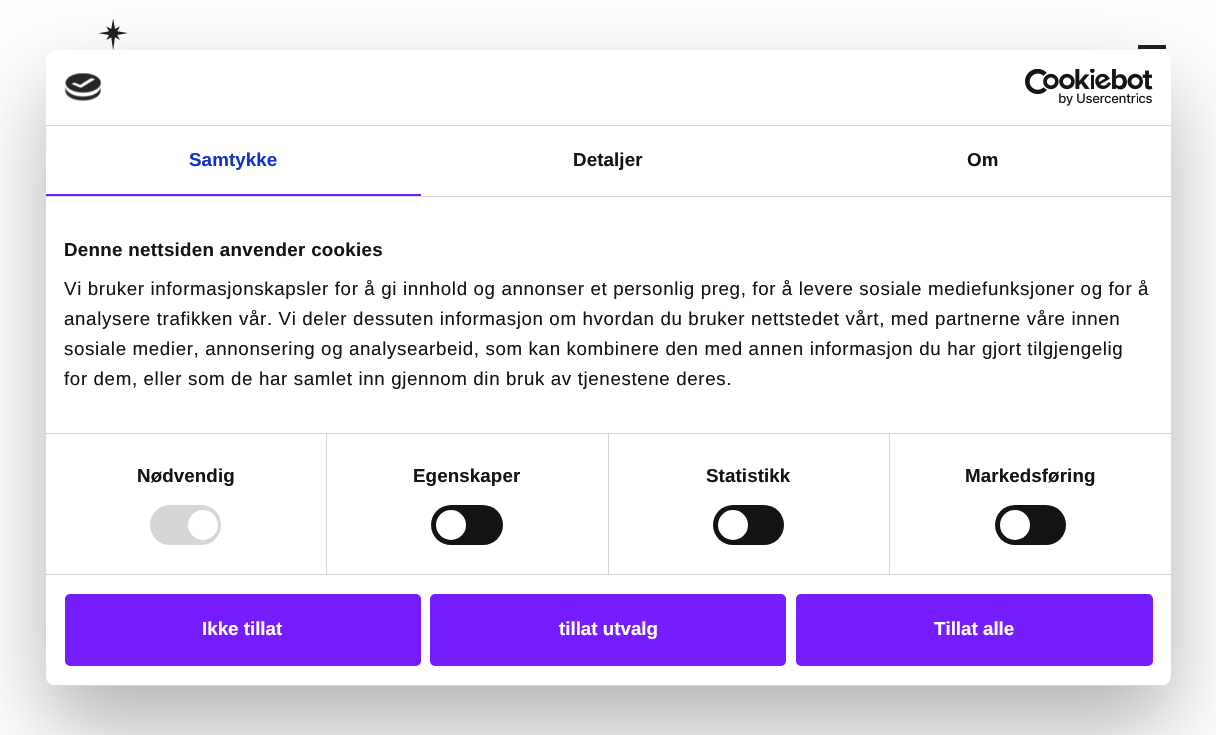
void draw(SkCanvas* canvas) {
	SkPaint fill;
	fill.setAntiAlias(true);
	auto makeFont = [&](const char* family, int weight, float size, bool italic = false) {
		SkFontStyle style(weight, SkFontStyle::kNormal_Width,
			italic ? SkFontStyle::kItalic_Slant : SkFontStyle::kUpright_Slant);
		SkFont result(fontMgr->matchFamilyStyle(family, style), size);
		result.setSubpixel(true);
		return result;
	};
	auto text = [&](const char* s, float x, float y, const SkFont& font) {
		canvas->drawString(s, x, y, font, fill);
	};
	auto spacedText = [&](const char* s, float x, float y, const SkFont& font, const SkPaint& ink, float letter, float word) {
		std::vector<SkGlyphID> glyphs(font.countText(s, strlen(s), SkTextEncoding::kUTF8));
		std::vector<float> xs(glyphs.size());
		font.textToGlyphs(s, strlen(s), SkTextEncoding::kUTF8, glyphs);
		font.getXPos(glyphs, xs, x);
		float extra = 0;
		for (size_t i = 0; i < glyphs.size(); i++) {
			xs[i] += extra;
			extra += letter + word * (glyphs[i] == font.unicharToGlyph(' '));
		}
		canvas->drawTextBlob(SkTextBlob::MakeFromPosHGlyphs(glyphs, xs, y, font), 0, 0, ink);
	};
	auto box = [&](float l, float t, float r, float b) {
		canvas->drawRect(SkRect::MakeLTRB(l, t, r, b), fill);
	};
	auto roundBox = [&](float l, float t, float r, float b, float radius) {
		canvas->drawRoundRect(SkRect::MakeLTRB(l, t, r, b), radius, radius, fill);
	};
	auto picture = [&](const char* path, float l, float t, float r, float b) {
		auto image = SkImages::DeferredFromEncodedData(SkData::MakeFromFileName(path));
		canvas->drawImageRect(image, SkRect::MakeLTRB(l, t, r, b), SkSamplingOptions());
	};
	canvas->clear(0xFFFFFFFF);
	picture("image0.png", 98, 19, 128, 50);
	fill.setColor(0xFF1C1F2A);
	box(1138, 45, 1166, 49);
	fill.setColor(0x4D000000);
	fill.setMaskFilter(SkMaskFilter::MakeBlur(kNormal_SkBlurStyle, 42.5f));
	canvas->drawRoundRect(SkRect::MakeLTRB(46, 90, 1171, 726), 10, 10, fill);
	fill.setMaskFilter(nullptr);
	fill.setColor(0xFFFFFFFF);
	roundBox(46, 50, 1171, 686, 10);
	fill.setColor(0xFFD6D6D6);
	box(46, 125, 1171, 126);
	picture("image1.png", 64, 73, 102, 101);
	picture("image2.png", 1025, 69, 1153, 106);
	box(46, 196, 1171, 197);
	fill.setColor(0xFF751DFF);
	box(46, 194, 421, 196);
	fill.setColor(0xFFD6D6D6);
	box(46, 433, 1171, 434);
	box(46, 574, 1171, 575);
	box(326, 434, 327, 574);
	roundBox(150, 505, 221, 545, 20);
	fill.setColor(0xFFFFFFFF);
	canvas->drawCircle(203, 525, 15, fill);
	fill.setColor(0xFFD6D6D6);
	box(608, 434, 609, 574);
	fill.setColor(0xFF141414);
	roundBox(431, 505, 503, 545, 20);
	fill.setColor(0xFFFFFFFF);
	canvas->drawCircle(451, 525, 15, fill);
	fill.setColor(0xFFD6D6D6);
	box(889, 434, 890, 574);
	fill.setColor(0xFF141414);
	roundBox(713, 505, 784, 545, 20);
	fill.setColor(0xFFFFFFFF);
	canvas->drawCircle(733, 525, 15, fill);
	fill.setColor(0xFF141414);
	roundBox(995, 505, 1066, 545, 20);
	fill.setColor(0xFFFFFFFF);
	canvas->drawCircle(1015, 525, 15, fill);
	canvas->save();
	canvas->clipPath(SkPathBuilder().moveTo(56, 50).lineTo(1161, 50).cubicTo(1166.5f, 50, 1171, 54.5f, 1171, 60).lineTo(1171, 676).cubicTo(1171, 681.5f, 1166.5f, 686, 1161, 686).lineTo(56, 686).cubicTo(50.5f, 686, 46, 681.5f, 46, 676).lineTo(46, 60).cubicTo(46, 54.5f, 50.5f, 50, 56, 50).close().detach(), true);
	fill.setColor(0xFFD6D6D6);
	box(46, 685, 1171, 686);
	canvas->restore();
	fill.setColor(0xFF751DFF);
	canvas->drawRoundRect(SkRect::MakeLTRB(66.5f, 595.5f, 419.5f, 664.5f), 3.5f, 3.5f, fill);
	fill.setStyle(SkPaint::kStroke_Style);
	fill.setStrokeWidth(3);
	canvas->drawRoundRect(SkRect::MakeLTRB(66.5f, 595.5f, 419.5f, 664.5f), 3.5f, 3.5f, fill);
	fill.setStyle(SkPaint::kFill_Style);
	canvas->drawRoundRect(SkRect::MakeLTRB(431.5f, 595.5f, 784.5f, 664.5f), 3.5f, 3.5f, fill);
	fill.setStyle(SkPaint::kStroke_Style);
	canvas->drawRoundRect(SkRect::MakeLTRB(431.5f, 595.5f, 784.5f, 664.5f), 3.5f, 3.5f, fill);
	fill.setStyle(SkPaint::kFill_Style);
	canvas->drawRoundRect(SkRect::MakeLTRB(797.5f, 595.5f, 1151.5f, 664.5f), 3.5f, 3.5f, fill);
	fill.setStyle(SkPaint::kStroke_Style);
	canvas->drawRoundRect(SkRect::MakeLTRB(797.5f, 595.5f, 1151.5f, 664.5f), 3.5f, 3.5f, fill);
	auto font1 = makeFont("Liberation Sans", 700, 18.75f);
	fill.setStyle(SkPaint::kFill_Style);
	fill.setColor(0xFF1032CF);
	spacedText("Samtykke", 189, 166, font1, fill, 0.1f, 0);
	fill.setColor(0xFF141414);
	spacedText("Detaljer", 573, 166, font1, fill, 0.1f, 0);
	spacedText("Om", 967, 166, font1, fill, 0.1f, 0);
	spacedText("Denne nettsiden anvender cookies", 64, 256, font1, fill, 0.3f, 0);
	auto font2 = makeFont("Liberation Sans", 400, 18.75f);
	spacedText("Vi bruker informasjonskapsler for å gi innhold og annonser et personlig preg, for å levere sosiale mediefunksjoner og for å", 64, 295, font2, fill, 0.62f, 0);
	spacedText("analysere trafikken vår. Vi deler dessuten informasjon om hvordan du bruker nettstedet vårt, med partnerne våre innen", 64, 325, font2, fill, 0.62f, 0);
	spacedText("sosiale medier, annonsering og analysearbeid, som kan kombinere den med annen informasjon du har gjort tilgjengelig", 64, 355, font2, fill, 0.62f, 0);
	spacedText("for dem, eller som de har samlet inn gjennom din bruk av tjenestene deres.", 64, 385, font2, fill, 0.62f, 0);
	spacedText("Nødvendig", 137, 482, font1, fill, 0.1f, 0);
	spacedText("Egenskaper", 413, 482, font1, fill, 0.1f, 0);
	spacedText("Statistikk", 706, 482, font1, fill, 0.1f, 0);
	spacedText("Markedsføring", 965, 482, font1, fill, 0.1f, 0);
	fill.setColor(0xFFFFFFFF);
	text("Ikke tillat", 202, 635, font1);
	text("tillat utvalg", 559, 635, font1);
	text("Tillat alle", 934, 635, font1);
}
